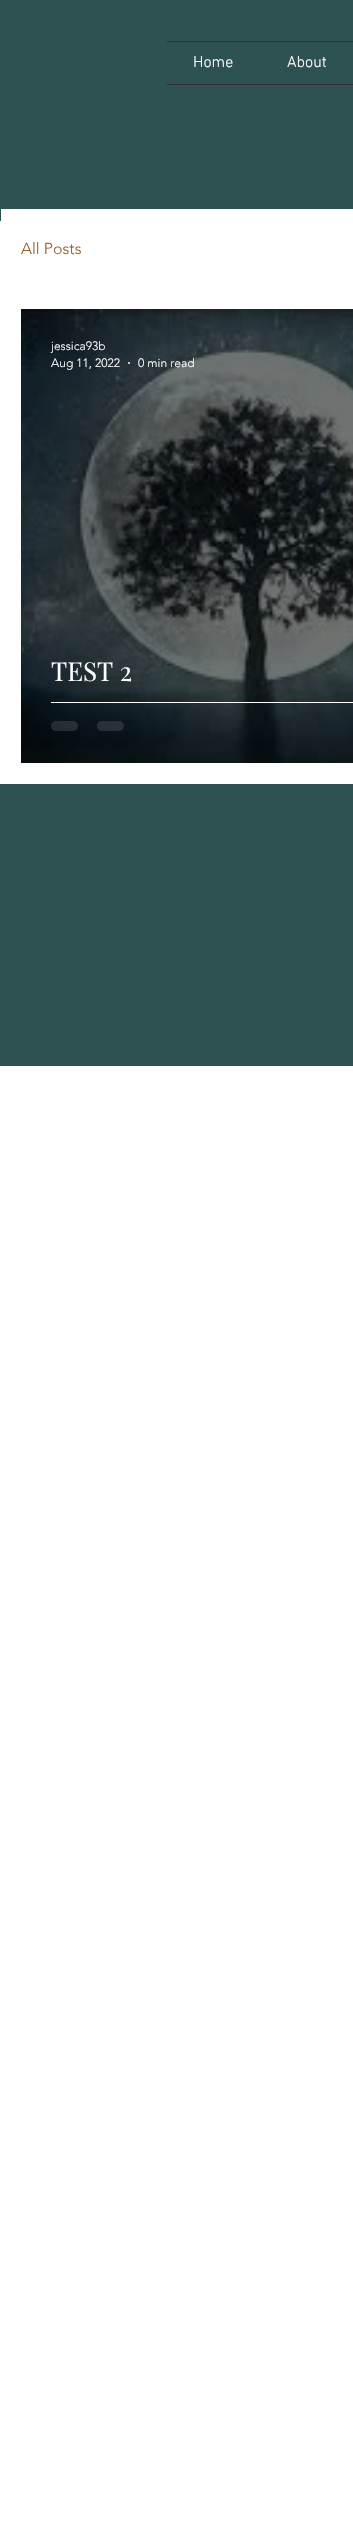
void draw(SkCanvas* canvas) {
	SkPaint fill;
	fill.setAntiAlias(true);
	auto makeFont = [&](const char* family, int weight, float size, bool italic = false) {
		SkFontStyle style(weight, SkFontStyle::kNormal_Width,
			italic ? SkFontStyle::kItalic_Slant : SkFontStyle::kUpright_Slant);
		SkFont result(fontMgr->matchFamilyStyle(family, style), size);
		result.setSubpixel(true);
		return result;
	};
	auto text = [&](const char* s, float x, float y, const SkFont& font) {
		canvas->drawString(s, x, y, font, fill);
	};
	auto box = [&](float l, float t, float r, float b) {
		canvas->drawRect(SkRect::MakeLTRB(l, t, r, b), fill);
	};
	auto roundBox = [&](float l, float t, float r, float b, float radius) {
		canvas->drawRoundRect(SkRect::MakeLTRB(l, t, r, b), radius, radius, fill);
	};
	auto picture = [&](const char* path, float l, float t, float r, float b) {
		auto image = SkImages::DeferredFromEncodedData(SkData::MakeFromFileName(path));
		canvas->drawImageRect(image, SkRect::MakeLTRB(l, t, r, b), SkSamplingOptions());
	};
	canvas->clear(0xFFFFFFFF);
	fill.setColor(0xFF2E5252);
	box(0, 0, 353, 1);
	box(0, 1, 167, 221);
	box(167, 1, 353, 209);
	fill.setColor(0xFF32302F);
	box(167, 41, 353, 42);
	box(167, 84, 353, 85);
	fill.setColor(0xFFFFFFFF);
	box(1, 209, 167, 221);
	picture("image0.png", 21, 309, 353, 763);
	canvas->drawCircle(129, 363, 1, fill);
	box(51, 702, 353, 703);
	fill.setColor(0x1FFFFFFF);
	roundBox(51, 721, 78, 731, 5);
	roundBox(97, 721, 124, 731, 5);
	fill.setColor(0xFF2E5252);
	box(0, 784, 353, 1066);
	auto font1 = makeFont("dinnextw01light", 300, 16);
	fill.setColor(0xFFFFFFFF);
	text("Home", 193, 67, font1);
	text("About", 287, 67, font1);
	auto font2 = makeFont("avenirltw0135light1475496", 300, 16);
	fill.setColor(0xFF955F27);
	text("All Posts", 21, 254, font2);
	auto font3 = makeFont("avenirltw0135light1475496", 300, 12);
	fill.setColor(0xFFFFFFFF);
	text("jessica93b", 51, 350, font3);
	text("Aug 11, 2022", 51, 367, font3);
	text("0 min read", 138, 367, font3);
	auto font4 = makeFont("Playfair Display", 400, 26);
	text("TEST 2", 51, 681, font4);
}
